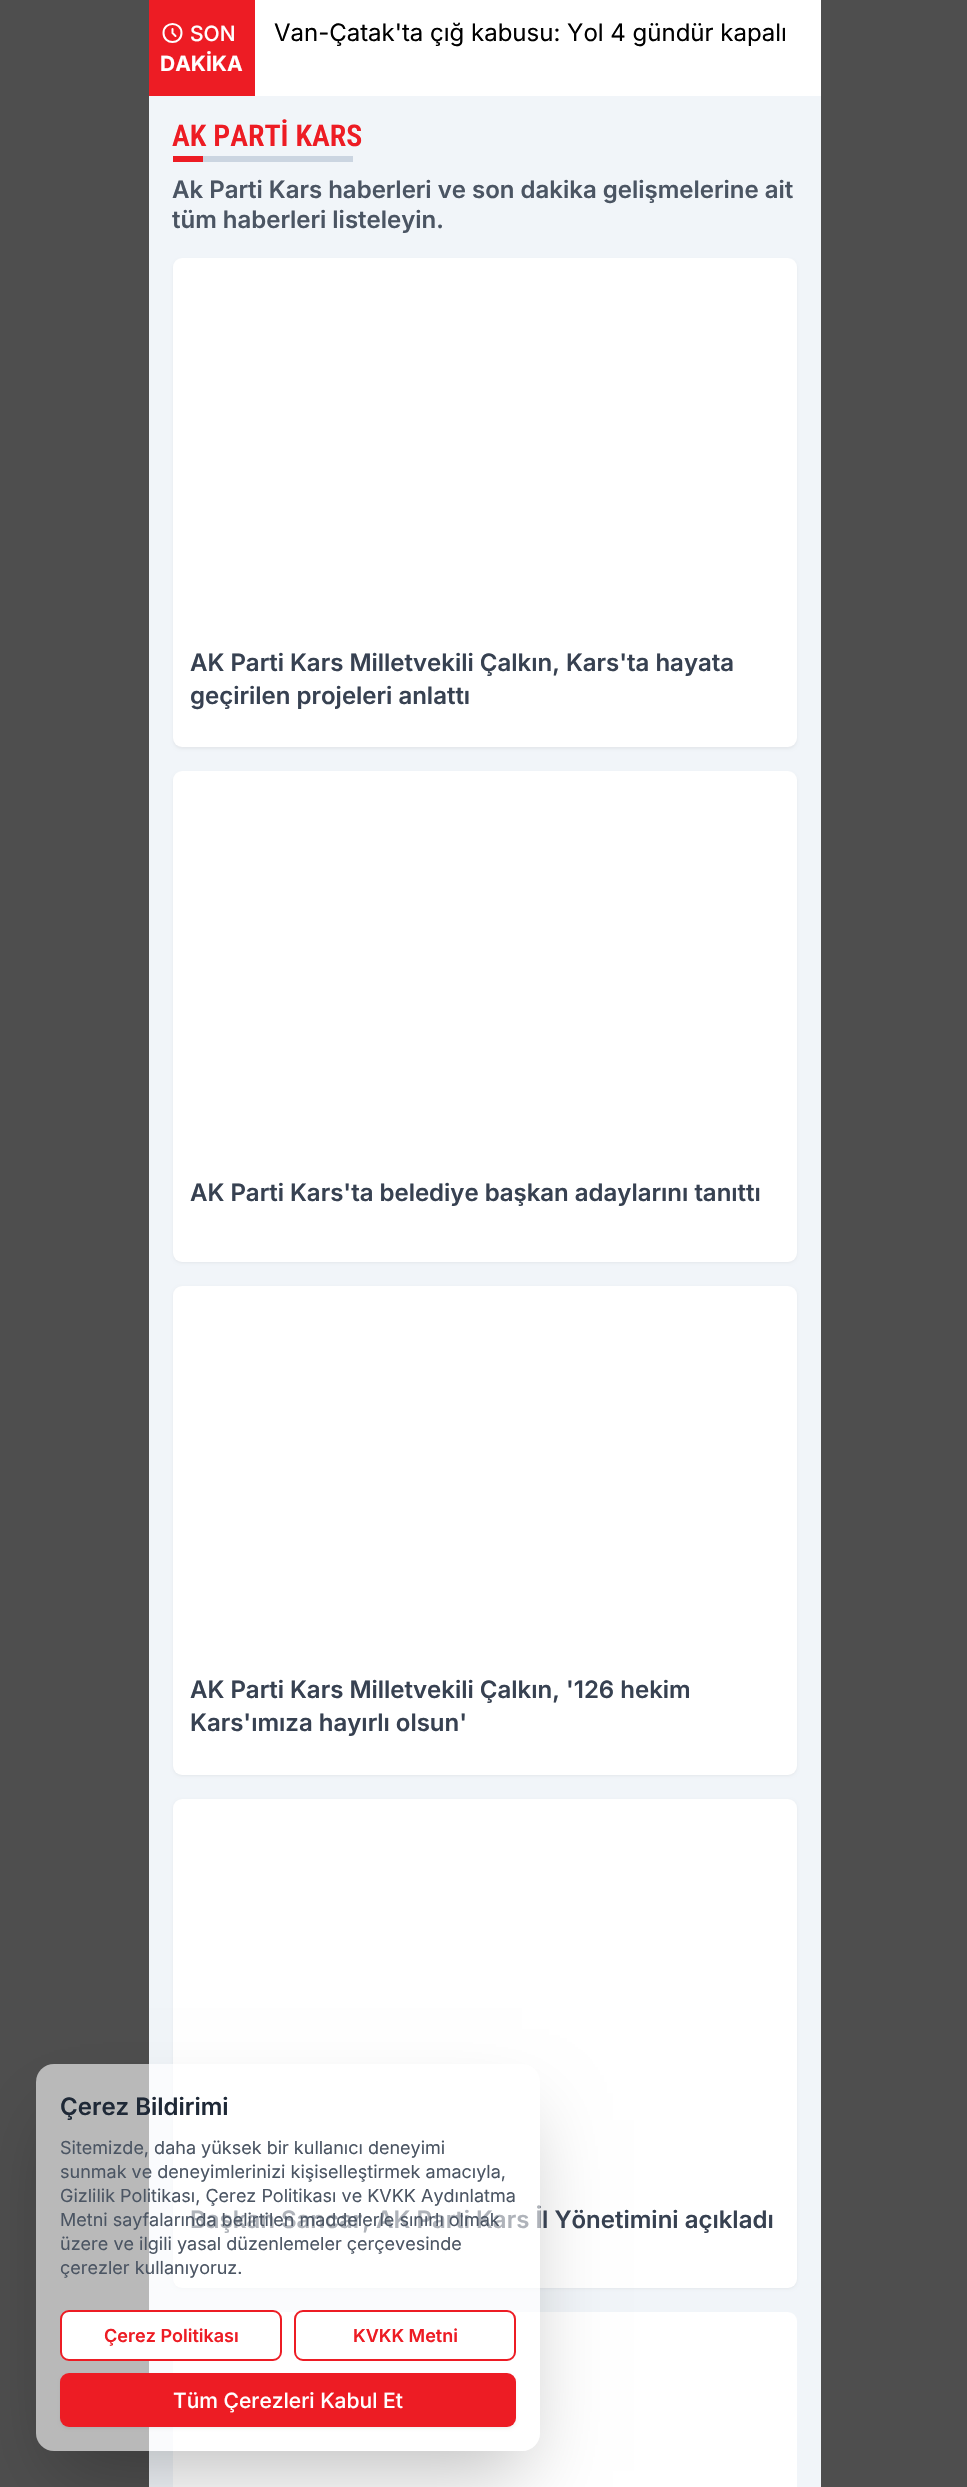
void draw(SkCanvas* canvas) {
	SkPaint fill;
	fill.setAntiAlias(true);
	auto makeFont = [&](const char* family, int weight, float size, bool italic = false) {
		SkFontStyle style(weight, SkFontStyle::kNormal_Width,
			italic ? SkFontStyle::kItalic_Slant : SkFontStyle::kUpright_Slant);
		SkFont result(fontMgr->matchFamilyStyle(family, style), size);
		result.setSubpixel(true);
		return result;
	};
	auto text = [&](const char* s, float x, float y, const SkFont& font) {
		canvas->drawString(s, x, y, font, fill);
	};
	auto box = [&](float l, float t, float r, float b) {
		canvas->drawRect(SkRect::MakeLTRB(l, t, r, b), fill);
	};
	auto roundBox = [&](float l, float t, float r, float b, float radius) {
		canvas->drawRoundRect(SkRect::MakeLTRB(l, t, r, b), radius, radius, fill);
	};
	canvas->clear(0xFF4E4E4E);
	fill.setColor(0xFFF1F5F9);
	box(149, 96, 821, 2487);
	fill.setColor(0xFFFFFFFF);
	box(255, 0, 821, 96);
	fill.setColor(0xFFED1C24);
	box(149, 0, 255, 96);
	fill.setStyle(SkPaint::kStroke_Style);
	fill.setStrokeWidth(2);
	fill.setStrokeCap(SkPaint::kRound_Cap);
	fill.setStrokeJoin(SkPaint::kRound_Join);
	fill.setColor(0xFFFFFFFF);
	canvas->drawPath(SkPathBuilder().moveTo(172.5f, 29).lineTo(172.5f, 33).lineTo(175.5f, 36).moveTo(181.5f, 33).cubicTo(181.5f, 45, 163.5f, 45, 163.5f, 33).cubicTo(163.5f, 21, 181.5f, 21, 181.5f, 33).close().detach(), fill);
	fill.setStyle(SkPaint::kFill_Style);
	fill.setColor(0xFFED1C24);
	box(173, 156, 203, 162);
	fill.setColor(0xFFCBD5E1);
	box(203, 156, 353, 162);
	fill.setColor(0x0D000000);
	fill.setMaskFilter(SkMaskFilter::MakeBlur(kNormal_SkBlurStyle, 1.5f));
	canvas->drawRoundRect(SkRect::MakeLTRB(173, 260, 797, 749), 9, 9, fill);
	fill.setMaskFilter(nullptr);
	fill.setColor(0xFFFFFFFF);
	roundBox(173, 258, 797, 747, 9);
	fill.setColor(0x0D000000);
	fill.setMaskFilter(SkMaskFilter::MakeBlur(kNormal_SkBlurStyle, 1.5f));
	canvas->drawRoundRect(SkRect::MakeLTRB(173, 773, 797, 1263), 9, 9, fill);
	fill.setMaskFilter(nullptr);
	fill.setColor(0xFFFFFFFF);
	roundBox(173, 771, 797, 1262, 9);
	fill.setColor(0x0D000000);
	fill.setMaskFilter(SkMaskFilter::MakeBlur(kNormal_SkBlurStyle, 1.5f));
	canvas->drawRoundRect(SkRect::MakeLTRB(173, 1287, 797, 1776), 9, 9, fill);
	fill.setMaskFilter(nullptr);
	fill.setColor(0xFFFFFFFF);
	roundBox(173, 1286, 797, 1775, 9);
	fill.setColor(0x0D000000);
	fill.setMaskFilter(SkMaskFilter::MakeBlur(kNormal_SkBlurStyle, 1.5f));
	canvas->drawRoundRect(SkRect::MakeLTRB(173, 1800, 797, 2289), 9, 9, fill);
	fill.setMaskFilter(nullptr);
	fill.setColor(0xFFFFFFFF);
	roundBox(173, 1799, 797, 2288, 9);
	roundBox(173, 2312, 797, 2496, 9);
	canvas->save();
	canvas->clipPath(SkPathBuilder(SkPathFillType::kEvenOdd).moveTo(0, 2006).lineTo(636, 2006).lineTo(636, 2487).lineTo(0, 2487).close().moveTo(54, 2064).lineTo(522, 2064).cubicTo(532, 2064, 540, 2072, 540, 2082).lineTo(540, 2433).cubicTo(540, 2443, 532, 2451, 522, 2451).lineTo(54, 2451).cubicTo(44, 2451, 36, 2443, 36, 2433).lineTo(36, 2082).cubicTo(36, 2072, 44, 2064, 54, 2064).close().detach(), true);
	fill.setColor(0x40000000);
	fill.setMaskFilter(SkMaskFilter::MakeBlur(kNormal_SkBlurStyle, 37.5f));
	canvas->drawRect(SkRect::MakeLTRB(54, 2120, 522, 2471), fill);
	fill.setMaskFilter(nullptr);
	canvas->restore();
	auto font1 = makeFont("Inter", 500, 21);
	fill.setColor(0xFFFFFFFF);
	text("SON", 190, 41, font1);
	auto font2 = makeFont("Inter", 700, 21);
	text("DAKİKA", 160, 71, font2);
	auto font3 = makeFont("Inter", 400, 24);
	fill.setColor(0xFF000000);
	text("Van-Çatak'ta çığ kabusu: Yol 4 gündür kapalı", 274, 41, font3);
	auto font4 = makeFont("Roboto Condensed", 600, 30);
	fill.setColor(0xFFED1C24);
	text("AK PARTİ KARS", 172, 146, font4);
	auto font5 = makeFont("Inter", 600, 24);
	fill.setColor(0xFF4B5563);
	text("Ak Parti Kars haberleri ve son dakika gelişmelerine ait", 172, 198, font5);
	text("tüm haberleri listeleyin.", 172, 228, font5);
	fill.setColor(0xFF374151);
	text("AK Parti Kars Milletvekili Çalkın, Kars'ta hayata", 190, 671, font5);
	text("geçirilen projeleri anlattı", 190, 704, font5);
	text("AK Parti Kars'ta belediye başkan adaylarını tanıttı", 190, 1201, font5);
	text("AK Parti Kars Milletvekili Çalkın, '126 hekim", 190, 1698, font5);
	text("Kars'ımıza hayırlı olsun'", 190, 1731, font5);
	text("Başkan Sancar, AK Parti Kars İl Yönetimini açıkladı", 190, 2228, font5);
	fill.setColor(0x99FFFFFF);
	roundBox(36, 2064, 540, 2451, 18);
	fill.setColor(0xFF1F2937);
	text("Çerez Bildirimi", 60, 2115, font5);
	auto font6 = makeFont("Inter", 400, 18);
	fill.setColor(0xFF4B5563);
	text("Sitemizde, daha yüksek bir kullanıcı deneyimi", 60, 2154, font6);
	text("sunmak ve deneyimlerinizi kişiselleştirmek amacıyla,", 60, 2178, font6);
	text("Gizlilik Politikası, Çerez Politikası ve KVKK Aydınlatma", 60, 2202, font6);
	text("Metni sayfalarında belirtilen maddelerle sınırlı olmak", 60, 2226, font6);
	text("üzere ve ilgili yasal düzenlemeler çerçevesinde", 60, 2250, font6);
	text("çerezler kullanıyoruz.", 60, 2274, font6);
	fill.setColor(0xFFFFFFFF);
	canvas->drawRoundRect(SkRect::MakeLTRB(61, 2311, 281, 2360), 8, 8, fill);
	fill.setStyle(SkPaint::kStroke_Style);
	fill.setStrokeCap(SkPaint::kButt_Cap);
	fill.setStrokeJoin(SkPaint::kMiter_Join);
	fill.setColor(0xFFED1C24);
	canvas->drawRoundRect(SkRect::MakeLTRB(61, 2311, 281, 2360), 8, 8, fill);
	auto font7 = makeFont("Inter", 600, 18);
	fill.setStyle(SkPaint::kFill_Style);
	text("Çerez Politikası", 104, 2342, font7);
	fill.setColor(0xFFFFFFFF);
	canvas->drawRoundRect(SkRect::MakeLTRB(295, 2311, 515, 2360), 8, 8, fill);
	fill.setStyle(SkPaint::kStroke_Style);
	fill.setColor(0xFFED1C24);
	canvas->drawRoundRect(SkRect::MakeLTRB(295, 2311, 515, 2360), 8, 8, fill);
	fill.setStyle(SkPaint::kFill_Style);
	text("KVKK Metni", 353, 2342, font7);
	fill.setColor(0x0D000000);
	fill.setMaskFilter(SkMaskFilter::MakeBlur(kNormal_SkBlurStyle, 1.5f));
	canvas->drawRoundRect(SkRect::MakeLTRB(60, 2375, 516, 2429), 9, 9, fill);
	fill.setMaskFilter(nullptr);
	fill.setColor(0xFFED1C24);
	roundBox(60, 2373, 516, 2427, 9);
	fill.setColor(0xFFFFFFFF);
	text("Tüm Çerezleri Kabul Et", 173, 2408, font1);
}
